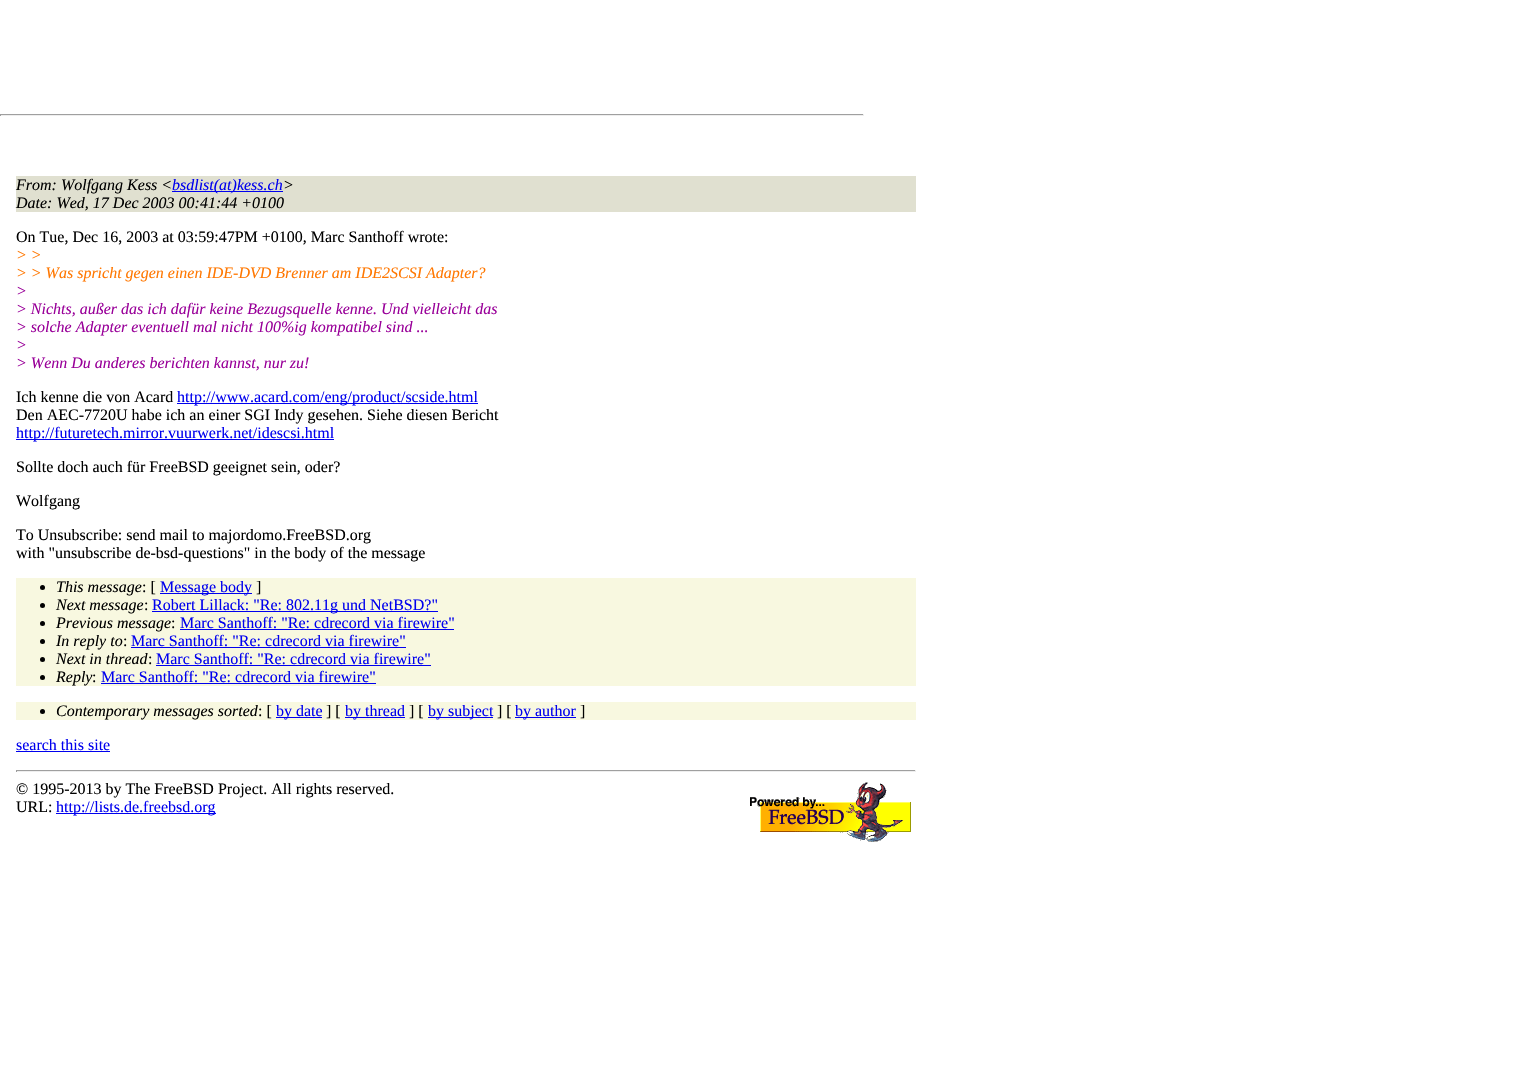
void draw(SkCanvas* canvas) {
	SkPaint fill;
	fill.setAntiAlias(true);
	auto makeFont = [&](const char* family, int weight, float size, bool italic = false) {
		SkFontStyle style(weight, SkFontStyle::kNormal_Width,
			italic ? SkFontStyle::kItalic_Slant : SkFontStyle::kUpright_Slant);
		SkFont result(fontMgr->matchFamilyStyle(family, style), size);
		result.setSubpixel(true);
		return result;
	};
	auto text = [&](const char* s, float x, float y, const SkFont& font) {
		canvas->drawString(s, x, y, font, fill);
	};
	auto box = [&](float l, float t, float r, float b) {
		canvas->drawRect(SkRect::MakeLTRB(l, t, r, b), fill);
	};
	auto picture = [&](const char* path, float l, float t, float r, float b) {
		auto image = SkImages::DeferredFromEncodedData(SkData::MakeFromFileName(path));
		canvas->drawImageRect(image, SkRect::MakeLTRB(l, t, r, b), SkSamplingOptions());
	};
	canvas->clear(0xFFFFFFFF);
	fill.setColor(0xFF9F9F9F);
	box(0, 114, 864, 115);
	fill.setColor(0xFFEEEEEE);
	box(863, 114, 864, 116);
	box(0, 115, 864, 116);
	fill.setColor(0xFF9F9F9F);
	box(0, 114, 1, 116);
	fill.setColor(0xFFE0E0D0);
	box(16, 176, 916, 212);
	fill.setColor(0xFF0000EE);
	box(172, 191, 283, 192);
	box(177, 403, 478, 404);
	box(16, 439, 334, 440);
	fill.setColor(0xFFF8F8E0);
	box(16, 578, 916, 686);
	fill.setColor(0xFF000000);
	canvas->drawCircle(42.5f, 587.5f, 2.5f, fill);
	fill.setColor(0xFF0000EE);
	box(160, 593, 252, 594);
	fill.setColor(0xFF000000);
	canvas->drawCircle(42.5f, 605.5f, 2.5f, fill);
	fill.setColor(0xFF0000EE);
	box(152, 611, 438, 612);
	fill.setColor(0xFF000000);
	canvas->drawCircle(42.5f, 623.5f, 2.5f, fill);
	fill.setColor(0xFF0000EE);
	box(180, 629, 454, 630);
	fill.setColor(0xFF000000);
	canvas->drawCircle(42.5f, 641.5f, 2.5f, fill);
	fill.setColor(0xFF0000EE);
	box(131, 647, 406, 648);
	fill.setColor(0xFF000000);
	canvas->drawCircle(42.5f, 659.5f, 2.5f, fill);
	fill.setColor(0xFF0000EE);
	box(156, 665, 431, 666);
	fill.setColor(0xFF000000);
	canvas->drawCircle(42.5f, 677.5f, 2.5f, fill);
	fill.setColor(0xFF0000EE);
	box(101, 683, 376, 684);
	fill.setColor(0xFFF8F8E0);
	box(16, 702, 916, 720);
	fill.setColor(0xFF000000);
	canvas->drawCircle(42.5f, 711.5f, 2.5f, fill);
	fill.setColor(0xFF0000EE);
	box(276, 717, 322, 718);
	box(345, 717, 405, 718);
	box(428, 717, 493, 718);
	box(515, 717, 576, 718);
	box(16, 751, 110, 752);
	fill.setColor(0xFF9F9F9F);
	box(16, 770, 916, 771);
	fill.setColor(0xFFEEEEEE);
	box(915, 770, 916, 772);
	box(16, 771, 916, 772);
	fill.setColor(0xFF9F9F9F);
	box(16, 770, 17, 772);
	picture("image0.png", 750, 782, 911, 842);
	fill.setColor(0xFF0000EE);
	box(56, 813, 216, 814);
	auto font1 = makeFont("Liberation Serif", 400, 16, true);
	fill.setColor(0xFF000000);
	text("From: Wolfgang Kess <", 16, 190, font1);
	fill.setColor(0xFF0000EE);
	text("bsdlist(at)kess.ch", 172, 190, font1);
	fill.setColor(0xFF000000);
	text(">", 283, 190, font1);
	text("Date: Wed, 17 Dec 2003 00:41:44 +0100", 16, 208, font1);
	auto font2 = makeFont("Liberation Serif", 400, 16);
	text("On Tue, Dec 16, 2003 at 03:59:47PM +0100, Marc Santhoff wrote:", 16, 242, font2);
	fill.setColor(0xFFFF7700);
	text("> >", 16, 260, font1);
	text("> > Was spricht gegen einen IDE-DVD Brenner am IDE2SCSI Adapter?", 16, 278, font1);
	fill.setColor(0xFF990099);
	text(">", 16, 296, font1);
	text("> Nichts, außer das ich dafür keine Bezugsquelle kenne. Und vielleicht das", 16, 314, font1);
	text("> solche Adapter eventuell mal nicht 100%ig kompatibel sind ...", 16, 332, font1);
	text(">", 16, 350, font1);
	text("> Wenn Du anderes berichten kannst, nur zu!", 16, 368, font1);
	fill.setColor(0xFF000000);
	text("Ich kenne die von Acard", 16, 402, font2);
	fill.setColor(0xFF0000EE);
	text("http://www.acard.com/eng/product/scside.html", 177, 402, font2);
	fill.setColor(0xFF000000);
	text("Den AEC-7720U habe ich an einer SGI Indy gesehen. Siehe diesen Bericht", 16, 420, font2);
	fill.setColor(0xFF0000EE);
	text("http://futuretech.mirror.vuurwerk.net/idescsi.html", 16, 438, font2);
	fill.setColor(0xFF000000);
	text("Sollte doch auch für FreeBSD geeignet sein, oder?", 16, 472, font2);
	text("Wolfgang", 16, 506, font2);
	text("To Unsubscribe: send mail to majordomo.FreeBSD.org", 16, 540, font2);
	text("with \"unsubscribe de-bsd-questions\" in the body of the message", 16, 558, font2);
	text("This message", 56, 592, font1);
	text(": [", 142, 592, font2);
	fill.setColor(0xFF0000EE);
	text("Message body", 160, 592, font2);
	fill.setColor(0xFF000000);
	text("]", 256, 592, font2);
	text("Next message", 56, 610, font1);
	text(":", 144, 610, font2);
	fill.setColor(0xFF0000EE);
	text("Robert Lillack: \"Re: 802.11g und NetBSD?\"", 152, 610, font2);
	fill.setColor(0xFF000000);
	text("Previous message", 56, 628, font1);
	text(":", 171, 628, font2);
	fill.setColor(0xFF0000EE);
	text("Marc Santhoff: \"Re: cdrecord via firewire\"", 180, 628, font2);
	fill.setColor(0xFF000000);
	text("In reply to", 56, 646, font1);
	text(":", 123, 646, font2);
	fill.setColor(0xFF0000EE);
	text("Marc Santhoff: \"Re: cdrecord via firewire\"", 131, 646, font2);
	fill.setColor(0xFF000000);
	text("Next in thread", 56, 664, font1);
	text(":", 148, 664, font2);
	fill.setColor(0xFF0000EE);
	text("Marc Santhoff: \"Re: cdrecord via firewire\"", 156, 664, font2);
	fill.setColor(0xFF000000);
	text("Reply", 56, 682, font1);
	text(":", 92, 682, font2);
	fill.setColor(0xFF0000EE);
	text("Marc Santhoff: \"Re: cdrecord via firewire\"", 101, 682, font2);
	fill.setColor(0xFF000000);
	text("Contemporary messages sorted", 56, 716, font1);
	text(": [", 258, 716, font2);
	fill.setColor(0xFF0000EE);
	text("by date", 276, 716, font2);
	fill.setColor(0xFF000000);
	text("] [", 326, 716, font2);
	fill.setColor(0xFF0000EE);
	text("by thread", 345, 716, font2);
	fill.setColor(0xFF000000);
	text("] [", 409, 716, font2);
	fill.setColor(0xFF0000EE);
	text("by subject", 428, 716, font2);
	fill.setColor(0xFF000000);
	text("] [", 497, 716, font2);
	fill.setColor(0xFF0000EE);
	text("by author", 515, 716, font2);
	fill.setColor(0xFF000000);
	text("]", 580, 716, font2);
	fill.setColor(0xFF0000EE);
	text("search this site", 16, 750, font2);
	fill.setColor(0xFF000000);
	text("© 1995-2013 by The FreeBSD Project. All rights reserved.", 16, 794, font2);
	text("URL:", 16, 812, font2);
	fill.setColor(0xFF0000EE);
	text("http://lists.de.freebsd.org", 56, 812, font2);
}
